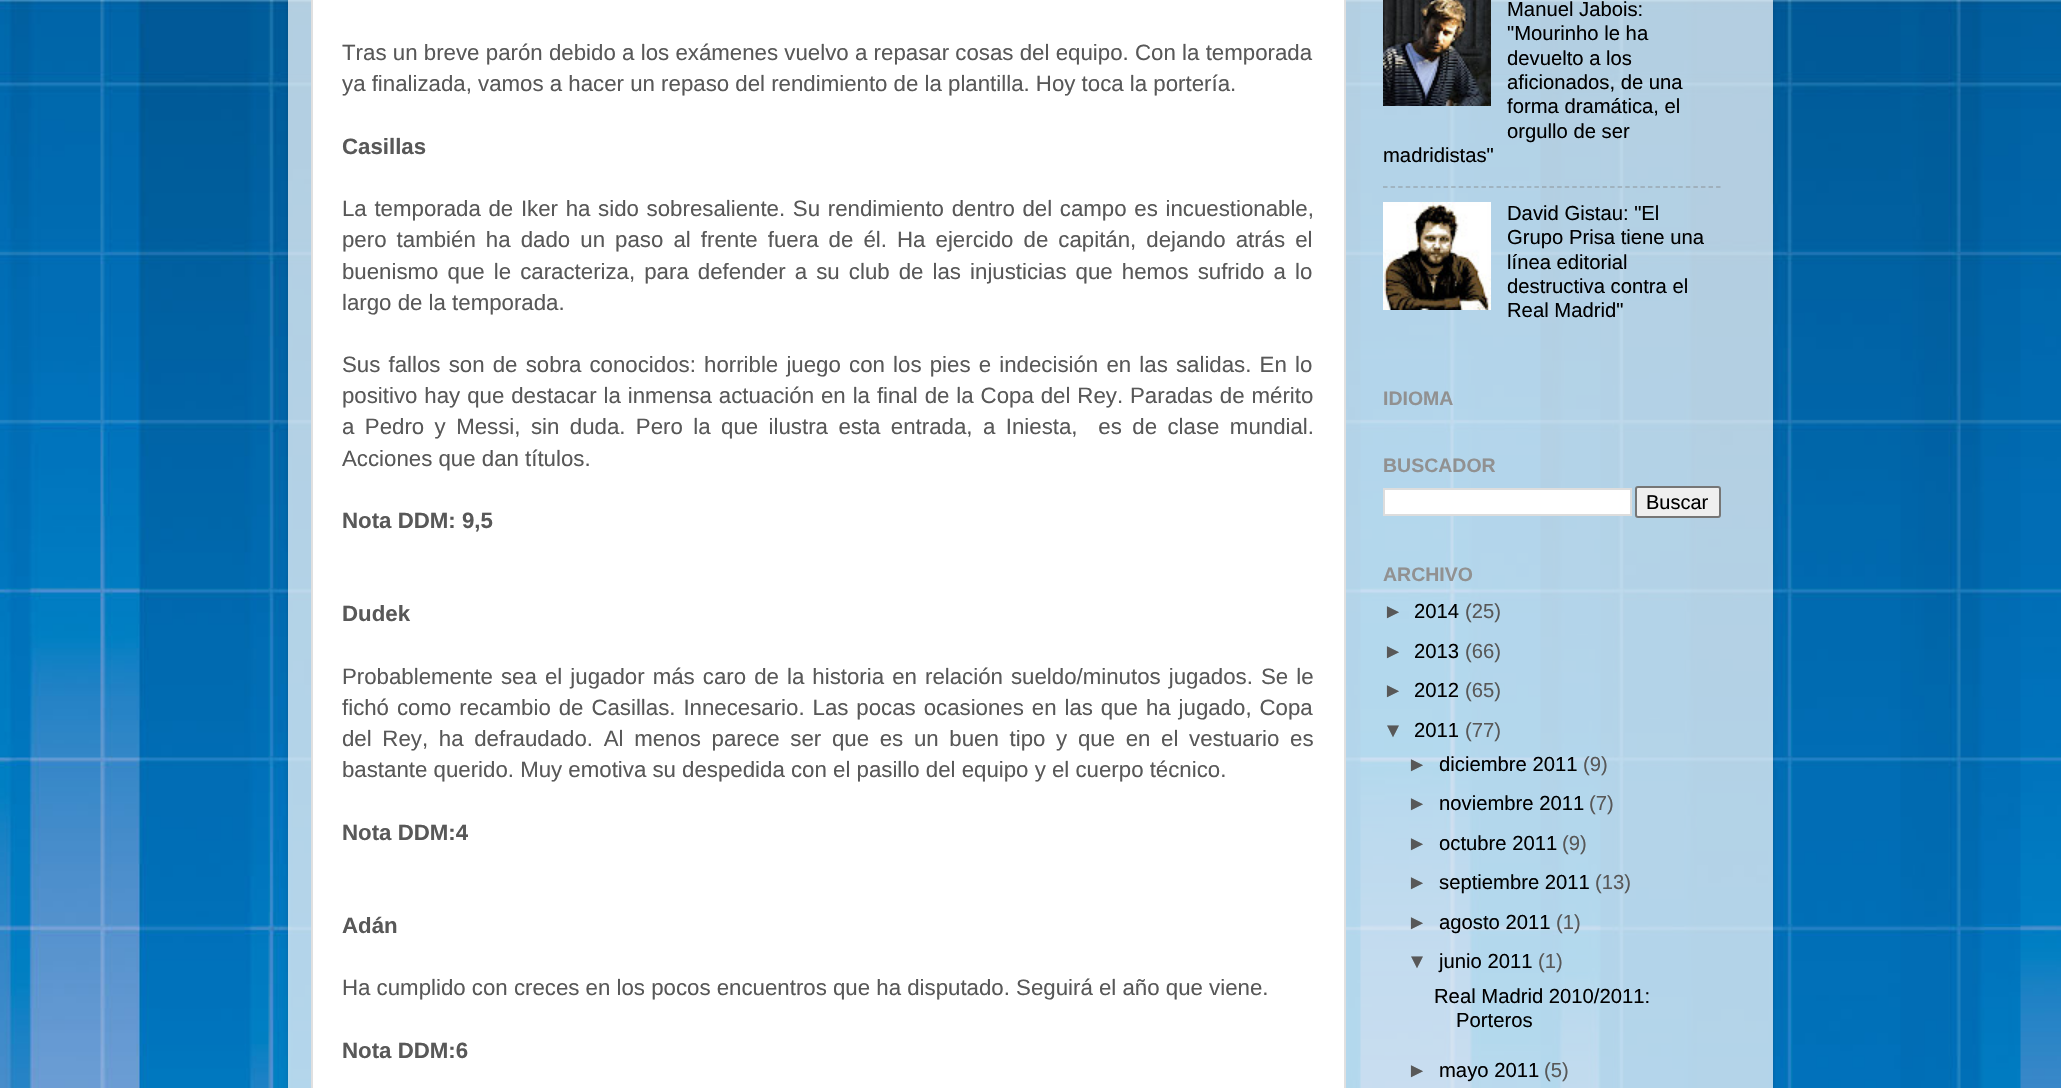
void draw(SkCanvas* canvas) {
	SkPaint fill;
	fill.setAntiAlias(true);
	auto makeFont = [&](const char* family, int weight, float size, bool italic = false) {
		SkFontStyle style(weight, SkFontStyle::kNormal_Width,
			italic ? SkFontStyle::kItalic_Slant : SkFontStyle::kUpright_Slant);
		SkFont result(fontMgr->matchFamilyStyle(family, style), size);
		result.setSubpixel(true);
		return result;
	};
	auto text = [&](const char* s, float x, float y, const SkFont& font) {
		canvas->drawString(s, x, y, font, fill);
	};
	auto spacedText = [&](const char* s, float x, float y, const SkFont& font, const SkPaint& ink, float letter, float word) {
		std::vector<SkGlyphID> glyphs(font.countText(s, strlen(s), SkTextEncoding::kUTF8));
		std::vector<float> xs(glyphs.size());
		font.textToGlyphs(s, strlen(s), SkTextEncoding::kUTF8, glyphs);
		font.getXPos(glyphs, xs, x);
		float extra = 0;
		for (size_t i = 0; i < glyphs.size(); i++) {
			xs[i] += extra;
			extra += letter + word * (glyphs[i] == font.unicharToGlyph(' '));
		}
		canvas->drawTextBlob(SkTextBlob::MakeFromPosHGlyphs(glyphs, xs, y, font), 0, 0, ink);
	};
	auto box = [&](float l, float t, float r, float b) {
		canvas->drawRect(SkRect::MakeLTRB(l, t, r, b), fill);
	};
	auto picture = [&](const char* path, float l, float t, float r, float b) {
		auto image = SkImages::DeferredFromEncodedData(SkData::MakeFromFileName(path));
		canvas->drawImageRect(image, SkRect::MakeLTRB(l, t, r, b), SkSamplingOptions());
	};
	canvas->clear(0xFFFFFFFF);
	picture("image0.png", 0, 0, 2061, 1088);
	canvas->save();
	canvas->clipPath(SkPathBuilder(SkPathFillType::kEvenOdd).moveTo(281, 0).lineTo(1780, 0).lineTo(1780, 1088).lineTo(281, 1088).close().moveTo(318, -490).lineTo(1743, -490).cubicTo(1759.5f, -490, 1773, -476.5f, 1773, -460).lineTo(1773, 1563).lineTo(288, 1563).lineTo(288, -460).cubicTo(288, -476.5f, 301.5f, -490, 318, -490).close().detach(), true);
	fill.setColor(0x26000000);
	fill.setMaskFilter(SkMaskFilter::MakeBlur(kNormal_SkBlurStyle, 2));
	canvas->drawRoundRect(SkRect::MakeLTRB(288, -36, 1773, 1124), 30, 30, fill);
	fill.setMaskFilter(nullptr);
	canvas->restore();
	fill.setColor(0xB3FFFFFF);
	box(288, 0, 1773, 1088);
	fill.setColor(0xFFFFFFFF);
	canvas->drawRect(SkRect::MakeLTRB(312, -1, 1345, 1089), fill);
	fill.setStyle(SkPaint::kStroke_Style);
	fill.setStrokeWidth(2);
	fill.setColor(0xFFE0E0E0);
	canvas->drawRect(SkRect::MakeLTRB(312, -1, 1345, 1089), fill);
	picture("image1.png", 1383, 0, 1491, 106);
	fill.setStrokeWidth(1.5f);
	fill.setColor(0x80808080);
	fill.setPathEffect(SkDashPathEffect::Make({{4.5f, 3.07f}}, 0));
	canvas->drawPath(SkPathBuilder().moveTo(1383, 187).lineTo(1720.5f, 187).detach(), fill);
	fill.setPathEffect(nullptr);
	picture("image2.png", 1383, 202, 1491, 310);
	fill.setStyle(SkPaint::kFill_Style);
	fill.setColor(0xFFFFFFFF);
	canvas->drawRect(SkRect::MakeLTRB(1384, 489, 1631, 515), fill);
	fill.setStyle(SkPaint::kStroke_Style);
	fill.setStrokeWidth(2);
	fill.setColor(0xFFDDDDDD);
	canvas->drawRect(SkRect::MakeLTRB(1384, 489, 1631, 515), fill);
	fill.setStyle(SkPaint::kFill_Style);
	fill.setColor(0xFFEFEFEF);
	canvas->drawRoundRect(SkRect::MakeLTRB(1636, 487, 1720, 517), 2, 2, fill);
	fill.setStyle(SkPaint::kStroke_Style);
	fill.setColor(0xFF767676);
	canvas->drawRoundRect(SkRect::MakeLTRB(1636, 487, 1720, 517), 2, 2, fill);
	auto font1 = makeFont("Liberation Sans", 400, 22.25f);
	fill.setStyle(SkPaint::kFill_Style);
	fill.setColor(0xFF585858);
	spacedText("Tras un breve parón debido a los exámenes vuelvo a repasar cosas del equipo. Con la temporada", 342, 60, font1, fill, 0, 0.1f);
	text("ya finalizada, vamos a hacer un repaso del rendimiento de la plantilla. Hoy toca la portería.", 342, 91, font1);
	auto font2 = makeFont("Liberation Sans", 700, 22.25f);
	text("Casillas", 342, 154, font2);
	spacedText("La temporada de Iker ha sido sobresaliente. Su rendimiento dentro del campo es incuestionable,", 342, 216, font1, fill, 0, 1.5f);
	spacedText("pero también ha dado un paso al frente fuera de él. Ha ejercido de capitán, dejando atrás el", 342, 247, font1, fill, 0, 3.9f);
	spacedText("buenismo que le caracteriza, para defender a su club de las injusticias que hemos sufrido a lo", 342, 279, font1, fill, 0, 2.9f);
	text("largo de la temporada.", 342, 310, font1);
	spacedText("Sus fallos son de sobra conocidos: horrible juego con los pies e indecisión en las salidas. En lo", 342, 372, font1, fill, 0, 2);
	spacedText("positivo hay que destacar la inmensa actuación en la final de la Copa del Rey. Paradas de mérito", 342, 403, font1, fill, 0, 0.75f);
	spacedText("a Pedro y Messi, sin duda. Pero la que ilustra esta entrada, a Iniesta,  es de clase mundial.", 342, 434, font1, fill, 0, 4.25f);
	text("Acciones que dan títulos.", 342, 466, font1);
	text("Nota DDM: 9,5", 342, 528, font2);
	text("Dudek", 342, 621, font2);
	spacedText("Probablemente sea el jugador más caro de la historia en relación sueldo/minutos jugados. Se le", 342, 684, font1, fill, 0, 1.9f);
	spacedText("fichó como recambio de Casillas. Innecesario. Las pocas ocasiones en las que ha jugado, Copa", 342, 715, font1, fill, 0, 1.75f);
	spacedText("del Rey, ha defraudado. Al menos parece ser que es un buen tipo y que en el vestuario es", 342, 746, font1, fill, 0, 4.5f);
	text("bastante querido. Muy emotiva su despedida con el pasillo del equipo y el cuerpo técnico.", 342, 777, font1);
	text("Nota DDM:4", 342, 840, font2);
	text("Adán", 342, 933, font2);
	text("Ha cumplido con creces en los pocos encuentros que ha disputado. Seguirá el año que viene.", 342, 995, font1);
	text("Nota DDM:6", 342, 1058, font2);
	auto font3 = makeFont("Liberation Sans", 400, 20.25f);
	fill.setColor(0xFF000000);
	text("Manuel Jabois:", 1507, 16, font3);
	text("\"Mourinho le ha", 1507, 40, font3);
	text("devuelto a los", 1507, 65, font3);
	text("aficionados, de una", 1507, 89, font3);
	text("forma dramática, el", 1507, 113, font3);
	text("orgullo de ser", 1507, 138, font3);
	text("madridistas\"", 1383, 162, font3);
	text("David Gistau: \"El", 1507, 220, font3);
	text("Grupo Prisa tiene una", 1507, 244, font3);
	text("línea editorial", 1507, 269, font3);
	text("destructiva contra el", 1507, 293, font3);
	text("Real Madrid\"", 1507, 317, font3);
	auto font4 = makeFont("Liberation Sans", 700, 19.5f);
	fill.setColor(0xFF919191);
	text("IDIOMA", 1383, 405, font4);
	text("BUSCADOR", 1383, 472, font4);
	auto font5 = makeFont("Liberation Sans", 400, 20);
	fill.setColor(0xFF000000);
	text("Buscar", 1646, 509, font5);
	fill.setColor(0xFF919191);
	text("ARCHIVO", 1383, 581, font4);
	fill.setColor(0xFF585858);
	text("►", 1383, 618, font3);
	fill.setColor(0xFF000000);
	text("2014", 1414, 618, font3);
	fill.setColor(0xFF585858);
	text("(25)", 1465, 618, font3);
	text("►", 1383, 658, font3);
	fill.setColor(0xFF000000);
	text("2013", 1414, 658, font3);
	fill.setColor(0xFF585858);
	text("(66)", 1465, 658, font3);
	text("►", 1383, 697, font3);
	fill.setColor(0xFF000000);
	text("2012", 1414, 697, font3);
	fill.setColor(0xFF585858);
	text("(65)", 1465, 697, font3);
	text("▼", 1383, 737, font3);
	fill.setColor(0xFF000000);
	text("2011", 1414, 737, font3);
	fill.setColor(0xFF585858);
	text("(77)", 1465, 737, font3);
	text("►", 1407, 771, font3);
	fill.setColor(0xFF000000);
	text("diciembre 2011", 1439, 771, font3);
	fill.setColor(0xFF585858);
	text("(9)", 1583, 771, font3);
	text("►", 1407, 810, font3);
	fill.setColor(0xFF000000);
	text("noviembre 2011", 1439, 810, font3);
	fill.setColor(0xFF585858);
	text("(7)", 1589, 810, font3);
	text("►", 1407, 850, font3);
	fill.setColor(0xFF000000);
	text("octubre 2011", 1439, 850, font3);
	fill.setColor(0xFF585858);
	text("(9)", 1562, 850, font3);
	text("►", 1407, 889, font3);
	fill.setColor(0xFF000000);
	text("septiembre 2011", 1439, 889, font3);
	fill.setColor(0xFF585858);
	text("(13)", 1595, 889, font3);
	text("►", 1407, 929, font3);
	fill.setColor(0xFF000000);
	text("agosto 2011", 1439, 929, font3);
	fill.setColor(0xFF585858);
	text("(1)", 1556, 929, font3);
	text("▼", 1407, 968, font3);
	fill.setColor(0xFF000000);
	text("junio 2011", 1439, 968, font3);
	fill.setColor(0xFF585858);
	text("(1)", 1538, 968, font3);
	fill.setColor(0xFF000000);
	text("Real Madrid 2010/2011:", 1434, 1003, font3);
	text("Porteros", 1456, 1027, font3);
	fill.setColor(0xFF585858);
	text("►", 1407, 1077, font3);
	fill.setColor(0xFF000000);
	text("mayo 2011", 1439, 1077, font3);
	fill.setColor(0xFF585858);
	text("(5)", 1544, 1077, font3);
}
